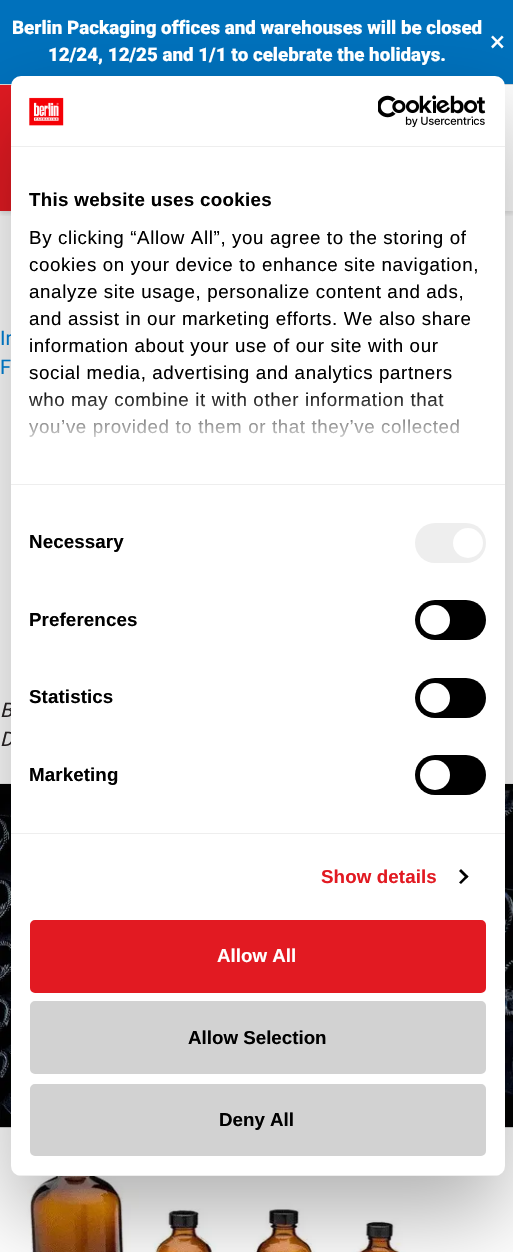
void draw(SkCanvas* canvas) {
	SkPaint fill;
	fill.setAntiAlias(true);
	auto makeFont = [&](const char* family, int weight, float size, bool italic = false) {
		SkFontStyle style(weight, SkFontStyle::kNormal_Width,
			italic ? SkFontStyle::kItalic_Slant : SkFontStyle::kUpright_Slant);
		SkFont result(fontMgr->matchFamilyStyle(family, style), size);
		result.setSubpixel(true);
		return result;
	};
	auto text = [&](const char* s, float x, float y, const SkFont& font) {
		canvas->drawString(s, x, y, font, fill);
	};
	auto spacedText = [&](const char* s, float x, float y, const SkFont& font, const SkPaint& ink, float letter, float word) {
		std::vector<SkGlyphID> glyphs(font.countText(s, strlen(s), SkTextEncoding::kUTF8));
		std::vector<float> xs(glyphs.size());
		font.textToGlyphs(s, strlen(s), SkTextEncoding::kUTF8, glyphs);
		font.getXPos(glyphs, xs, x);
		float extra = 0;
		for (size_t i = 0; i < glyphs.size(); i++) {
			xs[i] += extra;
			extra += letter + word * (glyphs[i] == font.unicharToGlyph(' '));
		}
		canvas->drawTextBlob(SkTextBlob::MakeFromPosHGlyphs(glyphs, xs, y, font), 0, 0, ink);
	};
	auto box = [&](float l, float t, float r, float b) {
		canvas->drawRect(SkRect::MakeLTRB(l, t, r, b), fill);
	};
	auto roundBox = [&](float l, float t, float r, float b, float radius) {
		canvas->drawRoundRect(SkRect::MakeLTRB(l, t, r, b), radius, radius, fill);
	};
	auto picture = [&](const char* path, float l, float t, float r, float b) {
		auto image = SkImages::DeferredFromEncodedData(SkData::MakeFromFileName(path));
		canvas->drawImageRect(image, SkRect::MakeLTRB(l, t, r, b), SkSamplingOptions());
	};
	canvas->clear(0xFFFFFFFF);
	fill.setColor(0xFF0071BC);
	box(0, 0, 513, 84);
	fill.setColor(0xFFD8D8D8);
	box(0, 84, 513, 85);
	canvas->save();
	canvas->clipRect(SkRect::MakeLTRB(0, 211, 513, 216));
	fill.setColor(0x1A000000);
	fill.setMaskFilter(SkMaskFilter::MakeBlur(kNormal_SkBlurStyle, 2));
	canvas->drawRect(SkRect::MakeLTRB(0, 88, 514, 214), fill);
	fill.setMaskFilter(nullptr);
	canvas->restore();
	picture("image0.png", 0, 85, 12, 211);
	picture("image1.png", 0, 783, 513, 1128);
	picture("image2.png", 0, 1127, 513, 1252);
	fill.setColor(0x4D000000);
	fill.setMaskFilter(SkMaskFilter::MakeBlur(kNormal_SkBlurStyle, 42.5f));
	canvas->drawRoundRect(SkRect::MakeLTRB(11, 116, 505, 1216), 10, 10, fill);
	fill.setMaskFilter(nullptr);
	auto font1 = makeFont("Roboto", 900, 18.75f);
	fill.setColor(0xFFFFFFFF);
	text("Berlin Packaging offices and warehouses will be closed", 12, 34, font1);
	text("12/24, 12/25 and 1/1 to celebrate the holidays.", 48, 61, font1);
	auto font2 = makeFont("Roboto", 400, 28);
	text("×", 490, 51, font2);
	auto font3 = makeFont("Roboto", 400, 20);
	fill.setColor(0xFF0071BC);
	text("In", 0, 345, font3);
	text("F", 0, 374, font3);
	auto font4 = makeFont("Roboto", 400, 20, true);
	fill.setColor(0xFF231F20);
	text("B", 0, 717, font4);
	text("D", 0, 746, font4);
	fill.setColor(0xFFFFFFFF);
	roundBox(11, 76, 505, 1176, 10);
	fill.setColor(0xFFEEEEEE);
	box(11, 146, 505, 147);
	picture("image3.png", 29, 97, 64, 126);
	picture("image4.png", 378, 95, 486, 128);
	box(11, 484, 505, 485);
	auto font5 = makeFont("Liberation Sans", 700, 18.75f);
	fill.setColor(0xFF000000);
	spacedText("This website uses cookies", 29, 206, font5, fill, 0.3f, 0);
	auto font6 = makeFont("Liberation Sans", 400, 18.75f);
	spacedText("By clicking “Allow All”, you agree to the storing of", 29, 244, font6, fill, 0.62f, 0);
	spacedText("cookies on your device to enhance site navigation,", 29, 271, font6, fill, 0.62f, 0);
	spacedText("analyze site usage, personalize content and ads,", 29, 298, font6, fill, 0.62f, 0);
	spacedText("and assist in our marketing efforts. We also share", 29, 325, font6, fill, 0.62f, 0);
	spacedText("information about your use of our site with our", 29, 352, font6, fill, 0.62f, 0);
	spacedText("social media, advertising and analytics partners", 29, 379, font6, fill, 0.62f, 0);
	spacedText("who may combine it with other information that", 29, 406, font6, fill, 0.62f, 0);
	spacedText("you’ve provided to them or that they’ve collected", 29, 433, font6, fill, 0.62f, 0);
	{
		const SkColor colors[] = {0xFFFFFFFF, 0xCCFFFFFF, 0x00FFFFFF};
		const float stops[] = {0, 0.5f, 1};
		const SkPoint ends[] = {{249, 484}, {249, 390}};
		fill.setShader(SkGradientShader::MakeLinear(ends, colors, stops, 3, SkTileMode::kClamp));
		fill.setAlpha(255);
	}
	box(28, 392, 459, 437);
	fill.setShader(nullptr);
	fill.setColor(0xFFEEEEEE);
	box(11, 833, 505, 834);
	fill.setColor(0xFF000000);
	spacedText("Necessary", 29, 548, font5, fill, 0.1f, 0);
	fill.setColor(0xFFEEEEEE);
	roundBox(415, 523, 486, 563, 20);
	fill.setColor(0xFFFFFFFF);
	canvas->drawCircle(468, 543, 15, fill);
	fill.setColor(0xFF000000);
	spacedText("Preferences", 29, 626, font5, fill, 0.1f, 0);
	roundBox(415, 600, 486, 640, 20);
	fill.setColor(0xFFFFFFFF);
	canvas->drawCircle(435, 620, 15, fill);
	fill.setColor(0xFF000000);
	spacedText("Statistics", 29, 703, font5, fill, 0.1f, 0);
	roundBox(415, 678, 486, 718, 20);
	fill.setColor(0xFFFFFFFF);
	canvas->drawCircle(435, 698, 15, fill);
	fill.setColor(0xFF000000);
	spacedText("Marketing", 29, 781, font5, fill, 0.1f, 0);
	roundBox(415, 755, 486, 795, 20);
	fill.setColor(0xFFFFFFFF);
	canvas->drawCircle(435, 775, 15, fill);
	fill.setColor(0xFFE21A22);
	spacedText("Show details", 321, 883, font5, fill, 0.1f, 0);
	fill.setColor(0xFF000000);
	canvas->drawPath(SkPathBuilder().moveTo(461, 869).lineTo(468.5f, 876.5f).lineTo(466.5f, 878.5f).lineTo(459, 871).close().detach(), fill);
	canvas->drawPath(SkPathBuilder().moveTo(466.5f, 875).lineTo(468.5f, 876.5f).lineTo(461, 884).lineTo(459, 882.5f).close().detach(), fill);
	canvas->save();
	canvas->clipPath(SkPathBuilder().moveTo(21, 76).lineTo(495, 76).cubicTo(500.5f, 76, 505, 80.5f, 505, 86).lineTo(505, 1166).cubicTo(505, 1171.5f, 500.5f, 1176, 495, 1176).lineTo(21, 1176).cubicTo(15.5f, 1176, 11, 1171.5f, 11, 1166).lineTo(11, 86).cubicTo(11, 80.5f, 15.5f, 76, 21, 76).close().detach(), true);
	fill.setColor(0xFFEEEEEE);
	box(11, 1175, 505, 1176);
	canvas->restore();
	fill.setColor(0xFFE21A22);
	canvas->drawRoundRect(SkRect::MakeLTRB(31.5f, 921.5f, 484.5f, 991.5f), 3.5f, 3.5f, fill);
	fill.setStyle(SkPaint::kStroke_Style);
	fill.setStrokeWidth(3);
	canvas->drawRoundRect(SkRect::MakeLTRB(31.5f, 921.5f, 484.5f, 991.5f), 3.5f, 3.5f, fill);
	fill.setStyle(SkPaint::kFill_Style);
	fill.setColor(0xFFFFFFFF);
	text("Allow All", 217, 962, font5);
	fill.setColor(0xFFD2D2D2);
	canvas->drawRoundRect(SkRect::MakeLTRB(31.5f, 1002.5f, 484.5f, 1072.5f), 3.5f, 3.5f, fill);
	fill.setStyle(SkPaint::kStroke_Style);
	canvas->drawRoundRect(SkRect::MakeLTRB(31.5f, 1002.5f, 484.5f, 1072.5f), 3.5f, 3.5f, fill);
	fill.setStyle(SkPaint::kFill_Style);
	fill.setColor(0xFF000000);
	text("Allow Selection", 188, 1044, font5);
	fill.setColor(0xFFD2D2D2);
	canvas->drawRoundRect(SkRect::MakeLTRB(31.5f, 1085.5f, 484.5f, 1154.5f), 3.5f, 3.5f, fill);
	fill.setStyle(SkPaint::kStroke_Style);
	canvas->drawRoundRect(SkRect::MakeLTRB(31.5f, 1085.5f, 484.5f, 1154.5f), 3.5f, 3.5f, fill);
	fill.setStyle(SkPaint::kFill_Style);
	fill.setColor(0xFF000000);
	text("Deny All", 219, 1126, font5);
}
